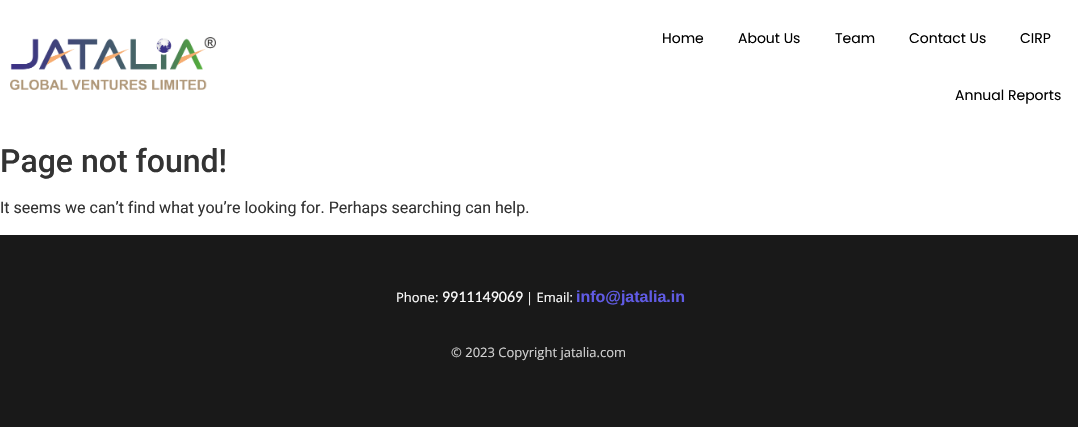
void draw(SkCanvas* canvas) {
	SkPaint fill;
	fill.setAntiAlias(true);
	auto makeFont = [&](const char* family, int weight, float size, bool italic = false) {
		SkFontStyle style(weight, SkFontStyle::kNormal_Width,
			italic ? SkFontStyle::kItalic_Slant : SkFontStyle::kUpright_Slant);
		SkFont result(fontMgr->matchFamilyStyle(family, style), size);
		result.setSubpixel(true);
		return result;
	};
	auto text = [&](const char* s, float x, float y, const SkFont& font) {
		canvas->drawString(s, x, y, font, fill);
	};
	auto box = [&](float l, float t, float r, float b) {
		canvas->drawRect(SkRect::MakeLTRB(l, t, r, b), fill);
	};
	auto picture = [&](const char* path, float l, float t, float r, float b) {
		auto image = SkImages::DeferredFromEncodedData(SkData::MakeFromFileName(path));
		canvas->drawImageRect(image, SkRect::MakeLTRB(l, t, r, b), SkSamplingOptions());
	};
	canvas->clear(0xFFFFFFFF);
	picture("image0.png", 10, 37, 216, 90);
	fill.setColor(0xFF191919);
	box(0, 235, 1078, 427);
	auto font1 = makeFont("Poppins", 400, 14);
	fill.setColor(0xFF000000);
	text("Home", 662, 43, font1);
	text("About Us", 738, 43, font1);
	text("Team", 835, 43, font1);
	text("Contact Us", 909, 43, font1);
	text("CIRP", 1020, 43, font1);
	text("Annual Reports", 955, 100, font1);
	auto font2 = makeFont("Roboto", 500, 32);
	fill.setColor(0xFF333333);
	text("Page not found!", 0, 172, font2);
	auto font3 = makeFont("Roboto", 400, 16);
	text("It seems we can’t find what you’re looking for. Perhaps searching can help.", 0, 213, font3);
	auto font4 = makeFont("Open Sans", 400, 13);
	fill.setColor(0xFFFFFFFF);
	text("Phone:", 396, 302, font4);
	auto font5 = makeFont("Carlito", 400, 16);
	text("9911149069", 442, 302, font5);
	text("| Email:", 526, 302, font4);
	auto font6 = makeFont("Liberation Sans", 700, 16);
	fill.setColor(0xFF605BE5);
	text("info@jatalia.in", 576, 302, font6);
	fill.setColor(0xFFD3D3D3);
	text("© 2023 Copyright jatalia.com", 451, 357, font4);
}
